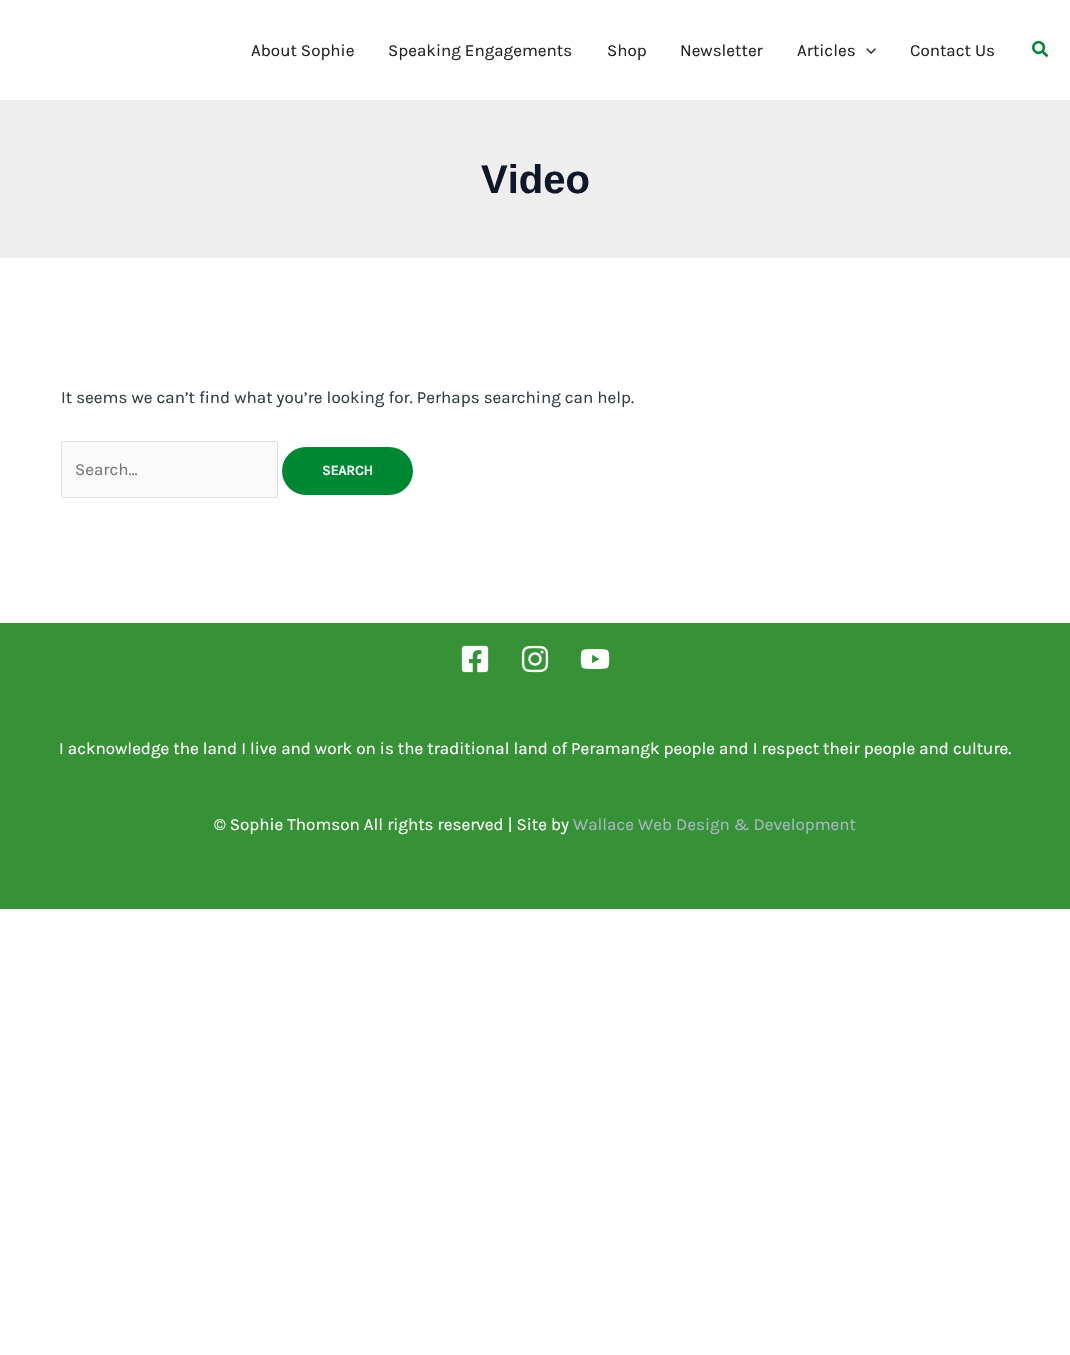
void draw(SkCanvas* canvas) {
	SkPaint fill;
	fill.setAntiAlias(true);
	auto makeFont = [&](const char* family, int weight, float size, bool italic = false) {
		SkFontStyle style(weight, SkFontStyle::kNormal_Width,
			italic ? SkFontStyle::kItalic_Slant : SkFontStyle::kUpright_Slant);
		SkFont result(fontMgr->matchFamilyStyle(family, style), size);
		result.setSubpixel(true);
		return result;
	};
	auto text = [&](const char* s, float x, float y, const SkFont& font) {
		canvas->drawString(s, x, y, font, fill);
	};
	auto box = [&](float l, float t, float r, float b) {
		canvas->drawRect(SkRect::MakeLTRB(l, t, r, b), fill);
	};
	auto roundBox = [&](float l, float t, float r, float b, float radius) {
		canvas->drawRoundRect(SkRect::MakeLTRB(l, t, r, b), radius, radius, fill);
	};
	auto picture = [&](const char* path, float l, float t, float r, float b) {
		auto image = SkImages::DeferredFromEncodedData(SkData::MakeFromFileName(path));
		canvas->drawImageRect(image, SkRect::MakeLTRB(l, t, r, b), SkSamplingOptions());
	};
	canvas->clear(0xFFFFFFFF);
	picture("image0.png", 866, 48, 876, 54);
	picture("image1.png", 1032, 40, 1048, 57);
	fill.setColor(0xFFEEEEEE);
	box(0, 100, 1070, 258);
	fill.setColor(0xFFFAFAFA);
	canvas->drawRoundRect(SkRect::MakeLTRB(61.5f, 441.5f, 277.5f, 497.5f), 1.5f, 1.5f, fill);
	fill.setStyle(SkPaint::kStroke_Style);
	fill.setStrokeWidth(1);
	fill.setColor(0xFFDDDDDD);
	canvas->drawRoundRect(SkRect::MakeLTRB(61.5f, 441.5f, 277.5f, 497.5f), 1.5f, 1.5f, fill);
	fill.setStyle(SkPaint::kFill_Style);
	fill.setColor(0xFF008733);
	roundBox(282, 447, 413, 495, 24);
	fill.setColor(0xFF379237);
	box(0, 623, 1070, 909);
	picture("image2.png", 461, 645, 489, 673);
	picture("image3.png", 521, 645, 549, 673);
	picture("image4.png", 580, 649, 610, 669);
	auto font1 = makeFont("Karla", 400, 17);
	fill.setColor(0xFF222222);
	text("About Sophie", 251, 56, font1);
	text("Speaking Engagements", 388, 56, font1);
	text("Shop", 607, 56, font1);
	text("Newsletter", 680, 56, font1);
	text("Articles", 797, 56, font1);
	text("Contact Us", 910, 56, font1);
	auto font2 = makeFont("Liberation Sans", 700, 40);
	fill.setColor(0xFF0F172A);
	text("Video", 481, 193, font2);
	fill.setColor(0xFF2F3B40);
	text("It seems we can’t find what you’re looking for. Perhaps searching can help.", 61, 403, font1);
	fill.setColor(0xFF757575);
	text("Search...", 75, 475, font1);
	auto font3 = makeFont("Karla", 700, 14);
	fill.setColor(0xFFFFFFFF);
	text("SEARCH", 322, 475, font3);
	text("I acknowledge the land I live and work on is the traditional land of Peramangk people and I respect their people and culture.", 59, 754, font1);
	text("© Sophie Thomson All rights reserved | Site by", 214, 830, font1);
	fill.setColor(0xFFABB8C3);
	text("Wallace Web Design & Development", 573, 830, font1);
}
